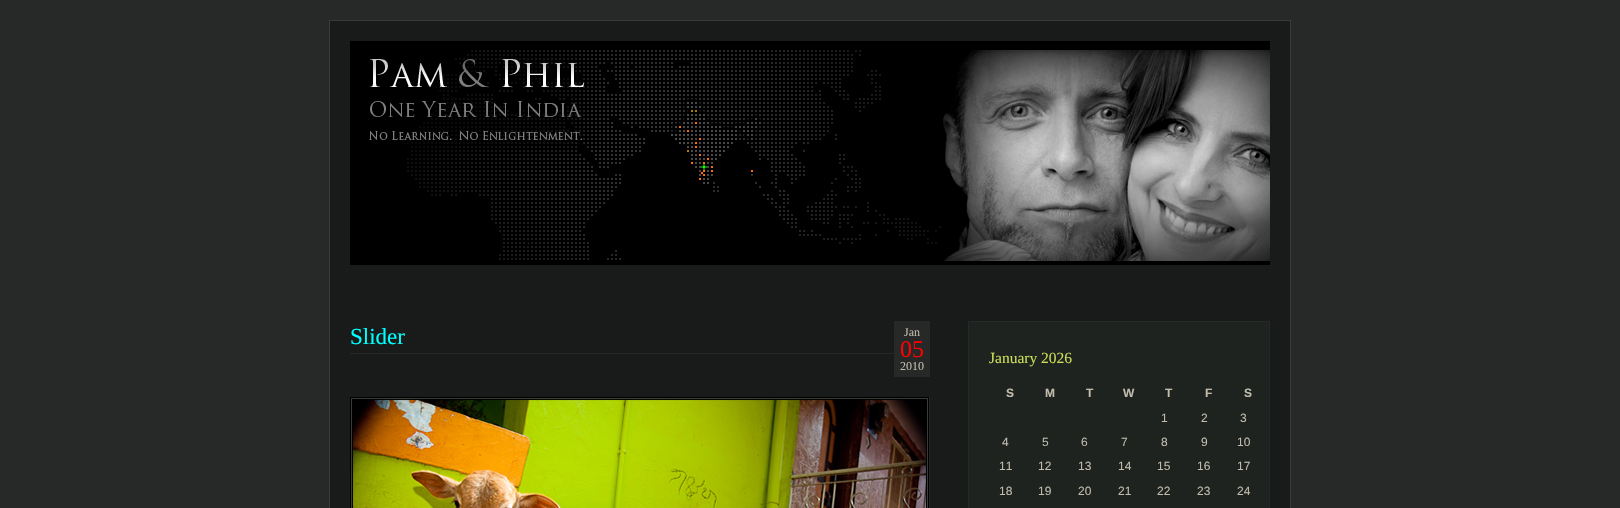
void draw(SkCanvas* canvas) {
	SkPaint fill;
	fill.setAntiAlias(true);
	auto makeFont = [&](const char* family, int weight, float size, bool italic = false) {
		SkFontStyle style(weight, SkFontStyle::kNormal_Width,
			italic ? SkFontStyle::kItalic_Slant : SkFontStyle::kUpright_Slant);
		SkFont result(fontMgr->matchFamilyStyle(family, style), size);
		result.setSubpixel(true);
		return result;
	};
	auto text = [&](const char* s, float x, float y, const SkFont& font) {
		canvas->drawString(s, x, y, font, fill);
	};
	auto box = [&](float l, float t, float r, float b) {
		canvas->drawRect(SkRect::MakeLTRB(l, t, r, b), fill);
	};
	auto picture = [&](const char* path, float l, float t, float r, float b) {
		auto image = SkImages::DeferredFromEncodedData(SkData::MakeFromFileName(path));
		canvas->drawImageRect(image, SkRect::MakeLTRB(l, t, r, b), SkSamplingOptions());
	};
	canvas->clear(0xFF262927);
	fill.setColor(0xFF181B19);
	canvas->drawRect(SkRect::MakeLTRB(329.5f, 20.5f, 1290.5f, 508.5f), fill);
	fill.setStyle(SkPaint::kStroke_Style);
	fill.setStrokeWidth(1);
	fill.setColor(0xFF383C37);
	canvas->drawRect(SkRect::MakeLTRB(329.5f, 20.5f, 1290.5f, 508.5f), fill);
	picture("image0.png", 350, 41, 1270, 265);
	fill.setStyle(SkPaint::kFill_Style);
	fill.setColor(0xFF262927);
	box(350, 353, 894, 354);
	box(894, 321, 930, 377);
	picture("image1.png", 350, 397, 930, 508);
	fill.setColor(0xFF1F2320);
	canvas->drawRect(SkRect::MakeLTRB(968.5f, 321.5f, 1269.5f, 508.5f), fill);
	fill.setStyle(SkPaint::kStroke_Style);
	fill.setColor(0xFF262927);
	canvas->drawRect(SkRect::MakeLTRB(968.5f, 321.5f, 1269.5f, 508.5f), fill);
	auto font1 = makeFont("Liberation Serif", 400, 23);
	fill.setStyle(SkPaint::kFill_Style);
	fill.setColor(0xFF00FFFF);
	text("Slider", 350, 344, font1);
	auto font2 = makeFont("Liberation Serif", 400, 12);
	fill.setColor(0xFFC1BCAC);
	text("Jan", 904, 336, font2);
	auto font3 = makeFont("Liberation Serif", 400, 24);
	fill.setColor(0xFFFF0000);
	text("05", 900, 357, font3);
	fill.setColor(0xFFC1BCAC);
	text("2010", 900, 370, font2);
	auto font4 = makeFont("Liberation Serif", 400, 15.5f);
	fill.setColor(0xFFCADE58);
	text("January 2026", 989, 363, font4);
	auto font5 = makeFont("Liberation Sans", 700, 12);
	fill.setColor(0xFFC1BCAC);
	text("S", 1006, 397, font5);
	text("M", 1045, 397, font5);
	text("T", 1086, 397, font5);
	text("W", 1123, 397, font5);
	text("T", 1165, 397, font5);
	text("F", 1205, 397, font5);
	text("S", 1244, 397, font5);
	auto font6 = makeFont("Liberation Sans", 400, 12);
	text("1", 1161, 422, font6);
	text("2", 1201, 422, font6);
	text("3", 1240, 422, font6);
	text("4", 1002, 446, font6);
	text("5", 1042, 446, font6);
	text("6", 1081, 446, font6);
	text("7", 1121, 446, font6);
	text("8", 1161, 446, font6);
	text("9", 1201, 446, font6);
	text("10", 1237, 446, font6);
	text("11", 999, 470, font6);
	text("12", 1038, 470, font6);
	text("13", 1078, 470, font6);
	text("14", 1118, 470, font6);
	text("15", 1157, 470, font6);
	text("16", 1197, 470, font6);
	text("17", 1237, 470, font6);
	text("18", 999, 495, font6);
	text("19", 1038, 495, font6);
	text("20", 1078, 495, font6);
	text("21", 1118, 495, font6);
	text("22", 1157, 495, font6);
	text("23", 1197, 495, font6);
	text("24", 1237, 495, font6);
}
